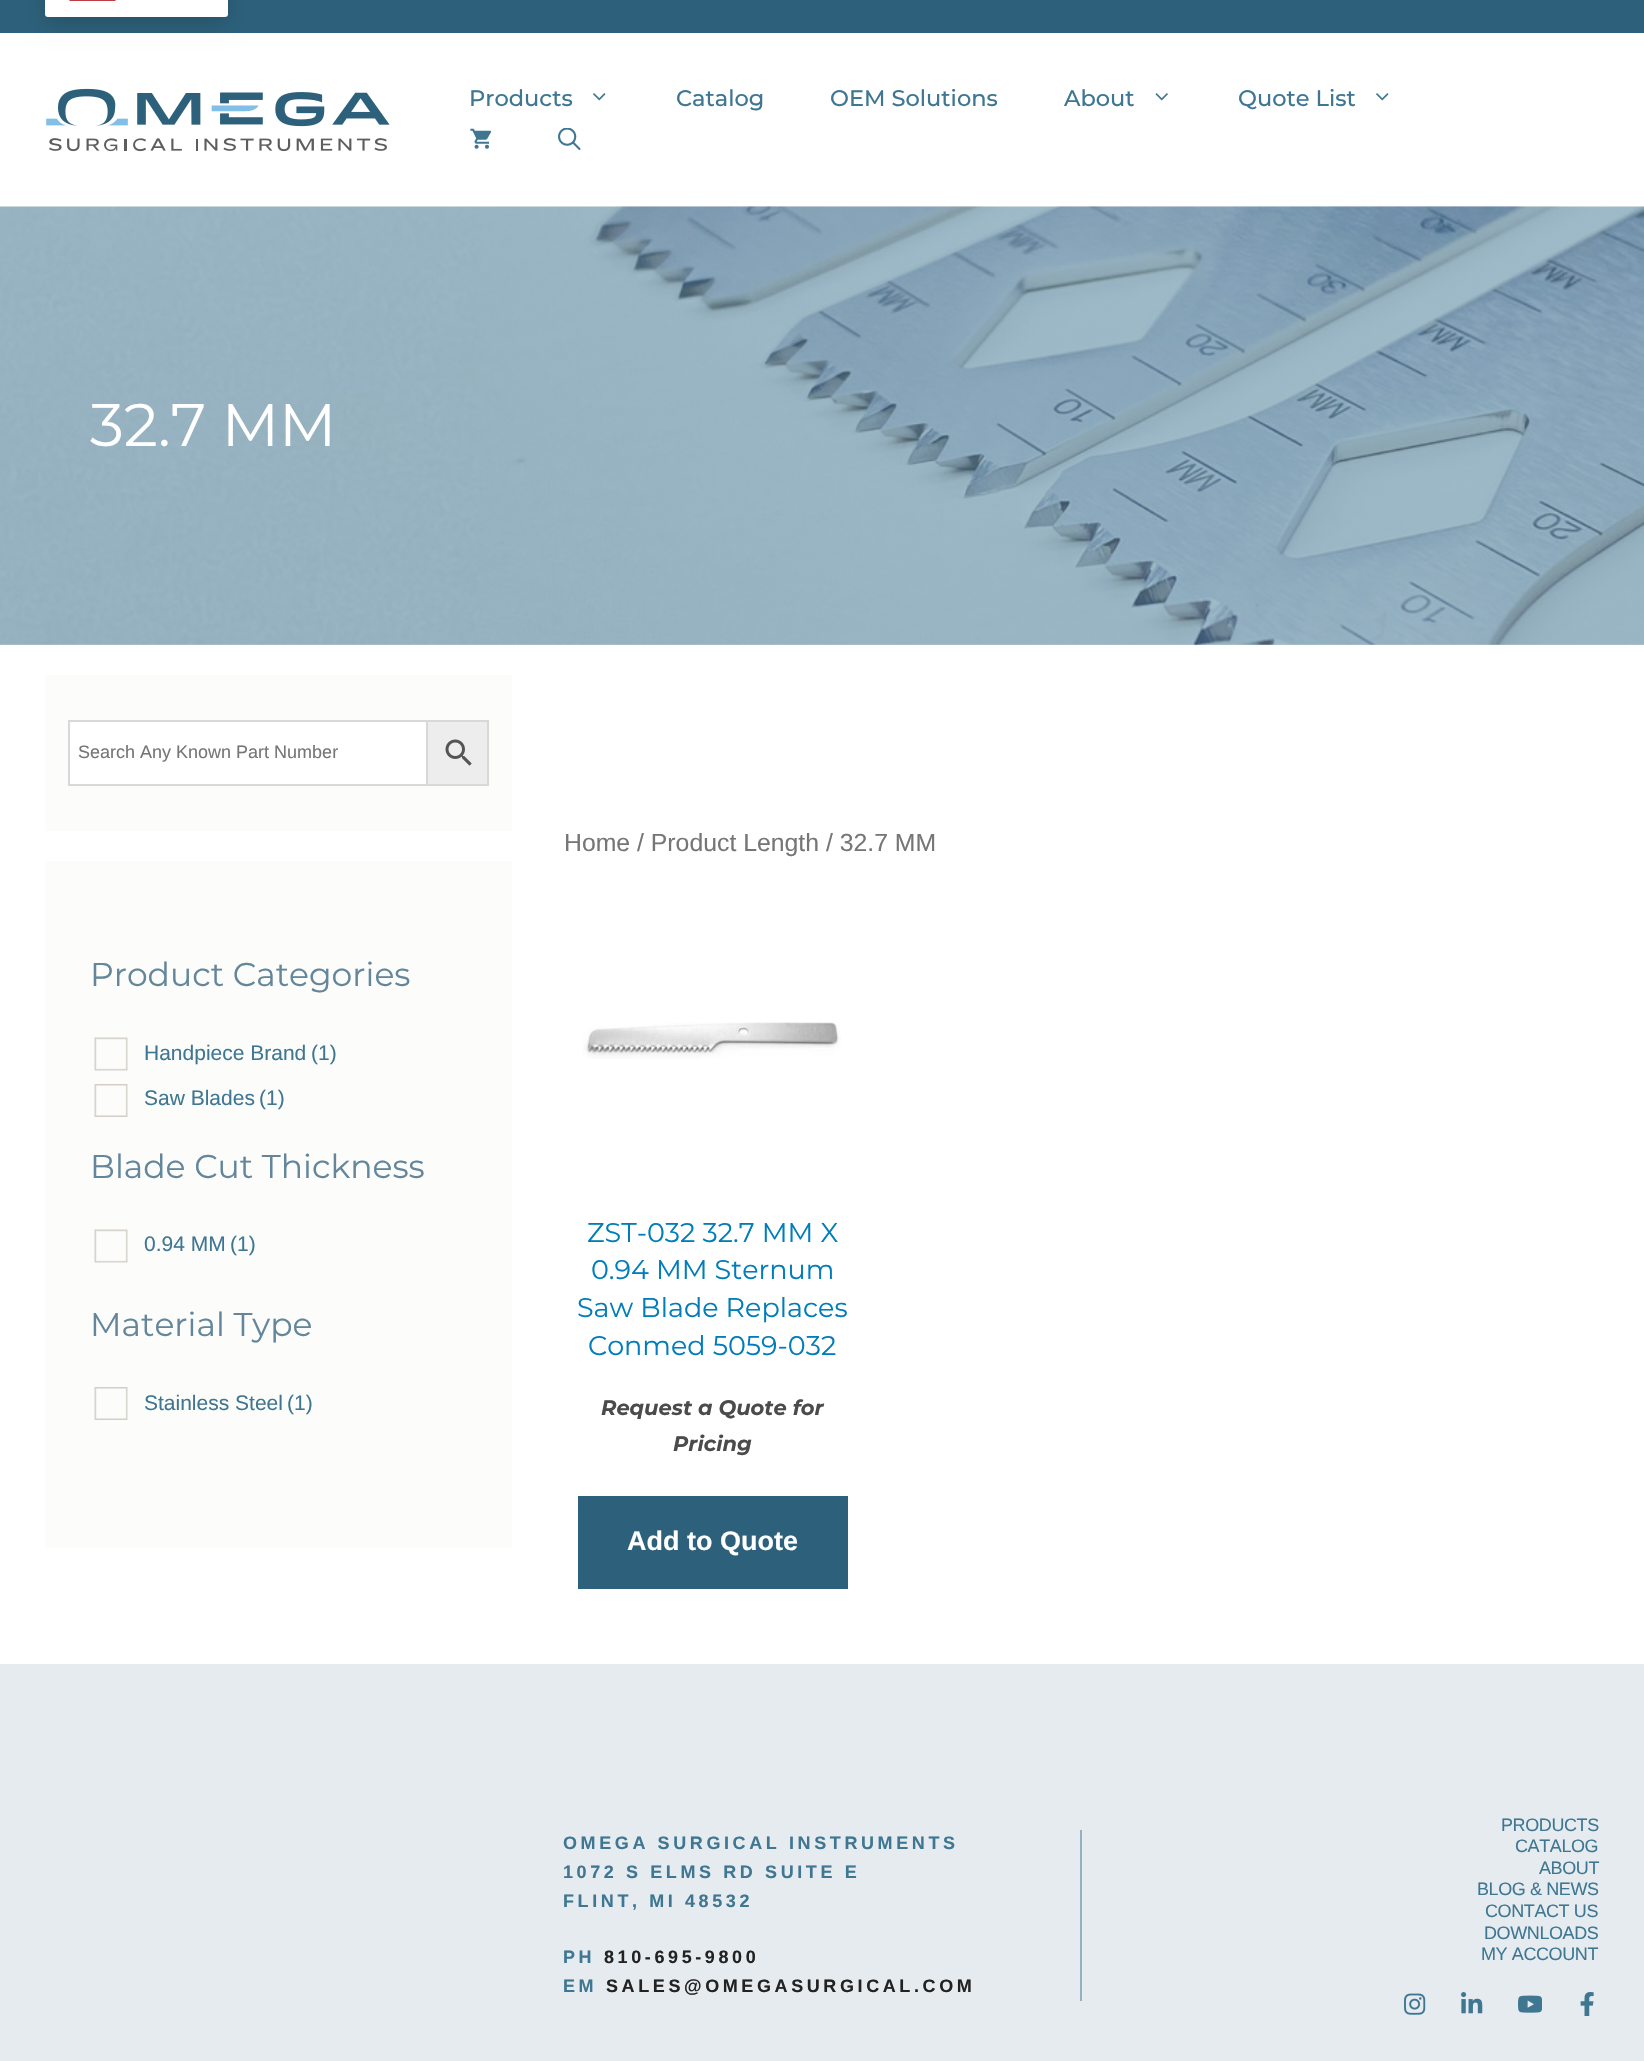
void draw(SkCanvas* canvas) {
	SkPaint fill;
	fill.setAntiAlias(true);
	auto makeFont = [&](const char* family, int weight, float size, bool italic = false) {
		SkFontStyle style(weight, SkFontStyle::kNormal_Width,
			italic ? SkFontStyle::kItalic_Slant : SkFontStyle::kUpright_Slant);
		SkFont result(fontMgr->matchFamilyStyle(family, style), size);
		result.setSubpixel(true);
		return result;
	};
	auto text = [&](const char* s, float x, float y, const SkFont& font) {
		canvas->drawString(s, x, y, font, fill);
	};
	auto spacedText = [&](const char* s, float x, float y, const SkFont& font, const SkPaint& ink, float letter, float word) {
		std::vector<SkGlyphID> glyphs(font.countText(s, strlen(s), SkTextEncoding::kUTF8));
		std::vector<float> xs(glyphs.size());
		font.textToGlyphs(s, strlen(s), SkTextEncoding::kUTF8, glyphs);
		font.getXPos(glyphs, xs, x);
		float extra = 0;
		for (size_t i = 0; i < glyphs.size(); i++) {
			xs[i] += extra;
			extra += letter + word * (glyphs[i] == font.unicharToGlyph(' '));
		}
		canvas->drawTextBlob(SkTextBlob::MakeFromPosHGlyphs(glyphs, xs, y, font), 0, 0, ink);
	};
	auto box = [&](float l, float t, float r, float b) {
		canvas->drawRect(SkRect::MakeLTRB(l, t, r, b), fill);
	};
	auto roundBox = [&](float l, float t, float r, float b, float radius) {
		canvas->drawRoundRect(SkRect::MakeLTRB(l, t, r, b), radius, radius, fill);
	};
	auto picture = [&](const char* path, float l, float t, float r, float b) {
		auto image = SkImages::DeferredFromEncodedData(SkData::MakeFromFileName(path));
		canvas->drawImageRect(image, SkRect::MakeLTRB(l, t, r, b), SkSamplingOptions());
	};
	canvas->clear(0xFFFFFFFF);
	fill.setColor(0xFF2D617B);
	box(0, 0, 1644, 33);
	fill.setColor(0x26000000);
	fill.setMaskFilter(SkMaskFilter::MakeBlur(kNormal_SkBlurStyle, 11));
	canvas->drawRoundRect(SkRect::MakeLTRB(45, -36, 228, 24), 3, 3, fill);
	fill.setMaskFilter(nullptr);
	fill.setColor(0xFFFFFFFF);
	roundBox(45, -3, 228, 17, 3);
	picture("image0.png", 69, 0, 116, 1);
	box(41, 33, 232, 40);
	picture("image1.png", 46, 88, 390, 152);
	picture("image2.png", 593, 93, 606, 101);
	picture("image3.png", 1155, 93, 1168, 101);
	picture("image2.png", 1376, 93, 1389, 101);
	picture("image4.png", 470, 128, 492, 149);
	picture("image5.png", 558, 128, 581, 150);
	fill.setColor(0xFF9FBBC9);
	box(0, 644, 1644, 645);
	picture("image6.png", 0, 206, 1644, 645);
	fill.setColor(0xFFFCFCFA);
	box(45, 675, 512, 831);
	fill.setColor(0xFFEDEDED);
	canvas->drawRect(SkRect::MakeLTRB(427, 721, 488, 785), fill);
	fill.setStyle(SkPaint::kStroke_Style);
	fill.setStrokeWidth(2);
	fill.setColor(0xFFD8D8D8);
	canvas->drawRect(SkRect::MakeLTRB(427, 721, 488, 785), fill);
	fill.setStyle(SkPaint::kFill_Style);
	fill.setColor(0xFFFFFFFF);
	canvas->drawRect(SkRect::MakeLTRB(69, 721, 427, 785), fill);
	fill.setStyle(SkPaint::kStroke_Style);
	fill.setColor(0xFFD8D8D8);
	canvas->drawRect(SkRect::MakeLTRB(69, 721, 427, 785), fill);
	picture("image7.png", 445, 739, 472, 766);
	fill.setStyle(SkPaint::kFill_Style);
	fill.setColor(0xFFFCFCFA);
	box(45, 861, 512, 1548);
	picture("image8.png", 94, 1037, 128, 1071);
	picture("image9.png", 94, 1084, 128, 1117);
	picture("image8.png", 94, 1229, 128, 1263);
	picture("image9.png", 94, 1387, 128, 1420);
	picture("image10.png", 583, 1022, 841, 1059);
	fill.setColor(0xFF2D617B);
	box(578, 1496, 848, 1589);
	fill.setColor(0xFFE5EBEF);
	box(0, 1664, 1644, 2061);
	fill.setColor(0xFF92B1C1);
	box(1080, 1830, 1082, 2001);
	picture("image11.png", 1404, 1993, 1426, 2015);
	picture("image12.png", 1461, 1992, 1483, 2014);
	picture("image13.png", 1518, 1995, 1542, 2013);
	picture("image14.png", 1580, 1992, 1594, 2016);
	auto font1 = makeFont("Montserrat", 500, 22.5f);
	fill.setColor(0xFF3F7793);
	text("Products", 469, 106, font1);
	text("Catalog", 676, 106, font1);
	text("OEM Solutions", 830, 106, font1);
	text("About", 1064, 106, font1);
	text("Quote List", 1238, 106, font1);
	auto font2 = makeFont("Montserrat", 400, 60);
	fill.setColor(0xFFFFFFFF);
	text("32.7 MM", 90, 446, font2);
	auto font3 = makeFont("Liberation Sans", 400, 18);
	fill.setColor(0xFF767676);
	text("Search Any Known Part Number", 78, 758, font3);
	auto font4 = makeFont("Montserrat", 400, 33);
	fill.setColor(0xFF63869C);
	text("Product Categories", 90, 986, font4);
	auto font5 = makeFont("Liberation Sans", 400, 21);
	fill.setColor(0xFF3F7793);
	text("Handpiece Brand", 144, 1060, font5);
	text("(1)", 311, 1060, font5);
	text("Saw Blades", 144, 1105, font5);
	text("(1)", 259, 1105, font5);
	fill.setColor(0xFF63869C);
	text("Blade Cut Thickness", 90, 1178, font4);
	fill.setColor(0xFF3F7793);
	text("0.94 MM", 144, 1251, font5);
	text("(1)", 230, 1251, font5);
	fill.setColor(0xFF63869C);
	text("Material Type", 90, 1336, font4);
	fill.setColor(0xFF3F7793);
	text("Stainless Steel", 144, 1410, font5);
	text("(1)", 287, 1410, font5);
	auto font6 = makeFont("Liberation Sans", 400, 24.8f);
	fill.setColor(0xFF767676);
	text("Home / Product Length / 32.7 MM", 564, 851, font6);
	auto font7 = makeFont("Montserrat", 400, 27);
	fill.setColor(0xFF007DBA);
	text("ZST-032 32.7 MM X", 587, 1242, font7);
	text("0.94 MM Sternum", 591, 1279, font7);
	text("Saw Blade Replaces", 577, 1317, font7);
	text("Conmed 5059-032", 588, 1355, font7);
	auto font8 = makeFont("Montserrat", 700, 21, true);
	fill.setColor(0xFF4B4B4B);
	text("Request a Quote for", 601, 1415, font8);
	text("Pricing", 673, 1451, font8);
	auto font9 = makeFont("Liberation Sans", 700, 27);
	fill.setColor(0xFFFFFFFF);
	text("Add to Quote", 627, 1550, font9);
	auto font10 = makeFont("Liberation Sans", 700, 18);
	fill.setColor(0xFF3F7793);
	spacedText("OMEGA SURGICAL INSTRUMENTS", 563, 1849, font10, fill, 3.6f, 0);
	spacedText("1072 S ELMS RD SUITE E", 563, 1878, font10, fill, 3.6f, 0);
	spacedText("FLINT, MI 48532", 563, 1907, font10, fill, 3.6f, 0);
	spacedText("PH", 563, 1963, font10, fill, 3.6f, 0);
	fill.setColor(0xFF222222);
	spacedText("810-695-9800", 604, 1963, font10, fill, 3.6f, 0);
	fill.setColor(0xFF3F7793);
	spacedText("EM", 563, 1992, font10, fill, 3.6f, 0);
	fill.setColor(0xFF222222);
	spacedText("SALES@OMEGASURGICAL.COM", 606, 1992, font10, fill, 3.6f, 0);
	fill.setColor(0xFF3F7793);
	spacedText("PRODUCTS", 1501, 1831, font3, fill, -0.4f, 0);
	spacedText("CATALOG", 1515, 1852, font3, fill, -0.4f, 0);
	spacedText("ABOUT", 1539, 1874, font3, fill, -0.4f, 0);
	spacedText("BLOG & NEWS", 1477, 1895, font3, fill, -0.4f, 0);
	spacedText("CONTACT US", 1485, 1917, font3, fill, -0.4f, 0);
	spacedText("DOWNLOADS", 1484, 1939, font3, fill, -0.4f, 0);
	spacedText("MY ACCOUNT", 1481, 1960, font3, fill, -0.4f, 0);
}
